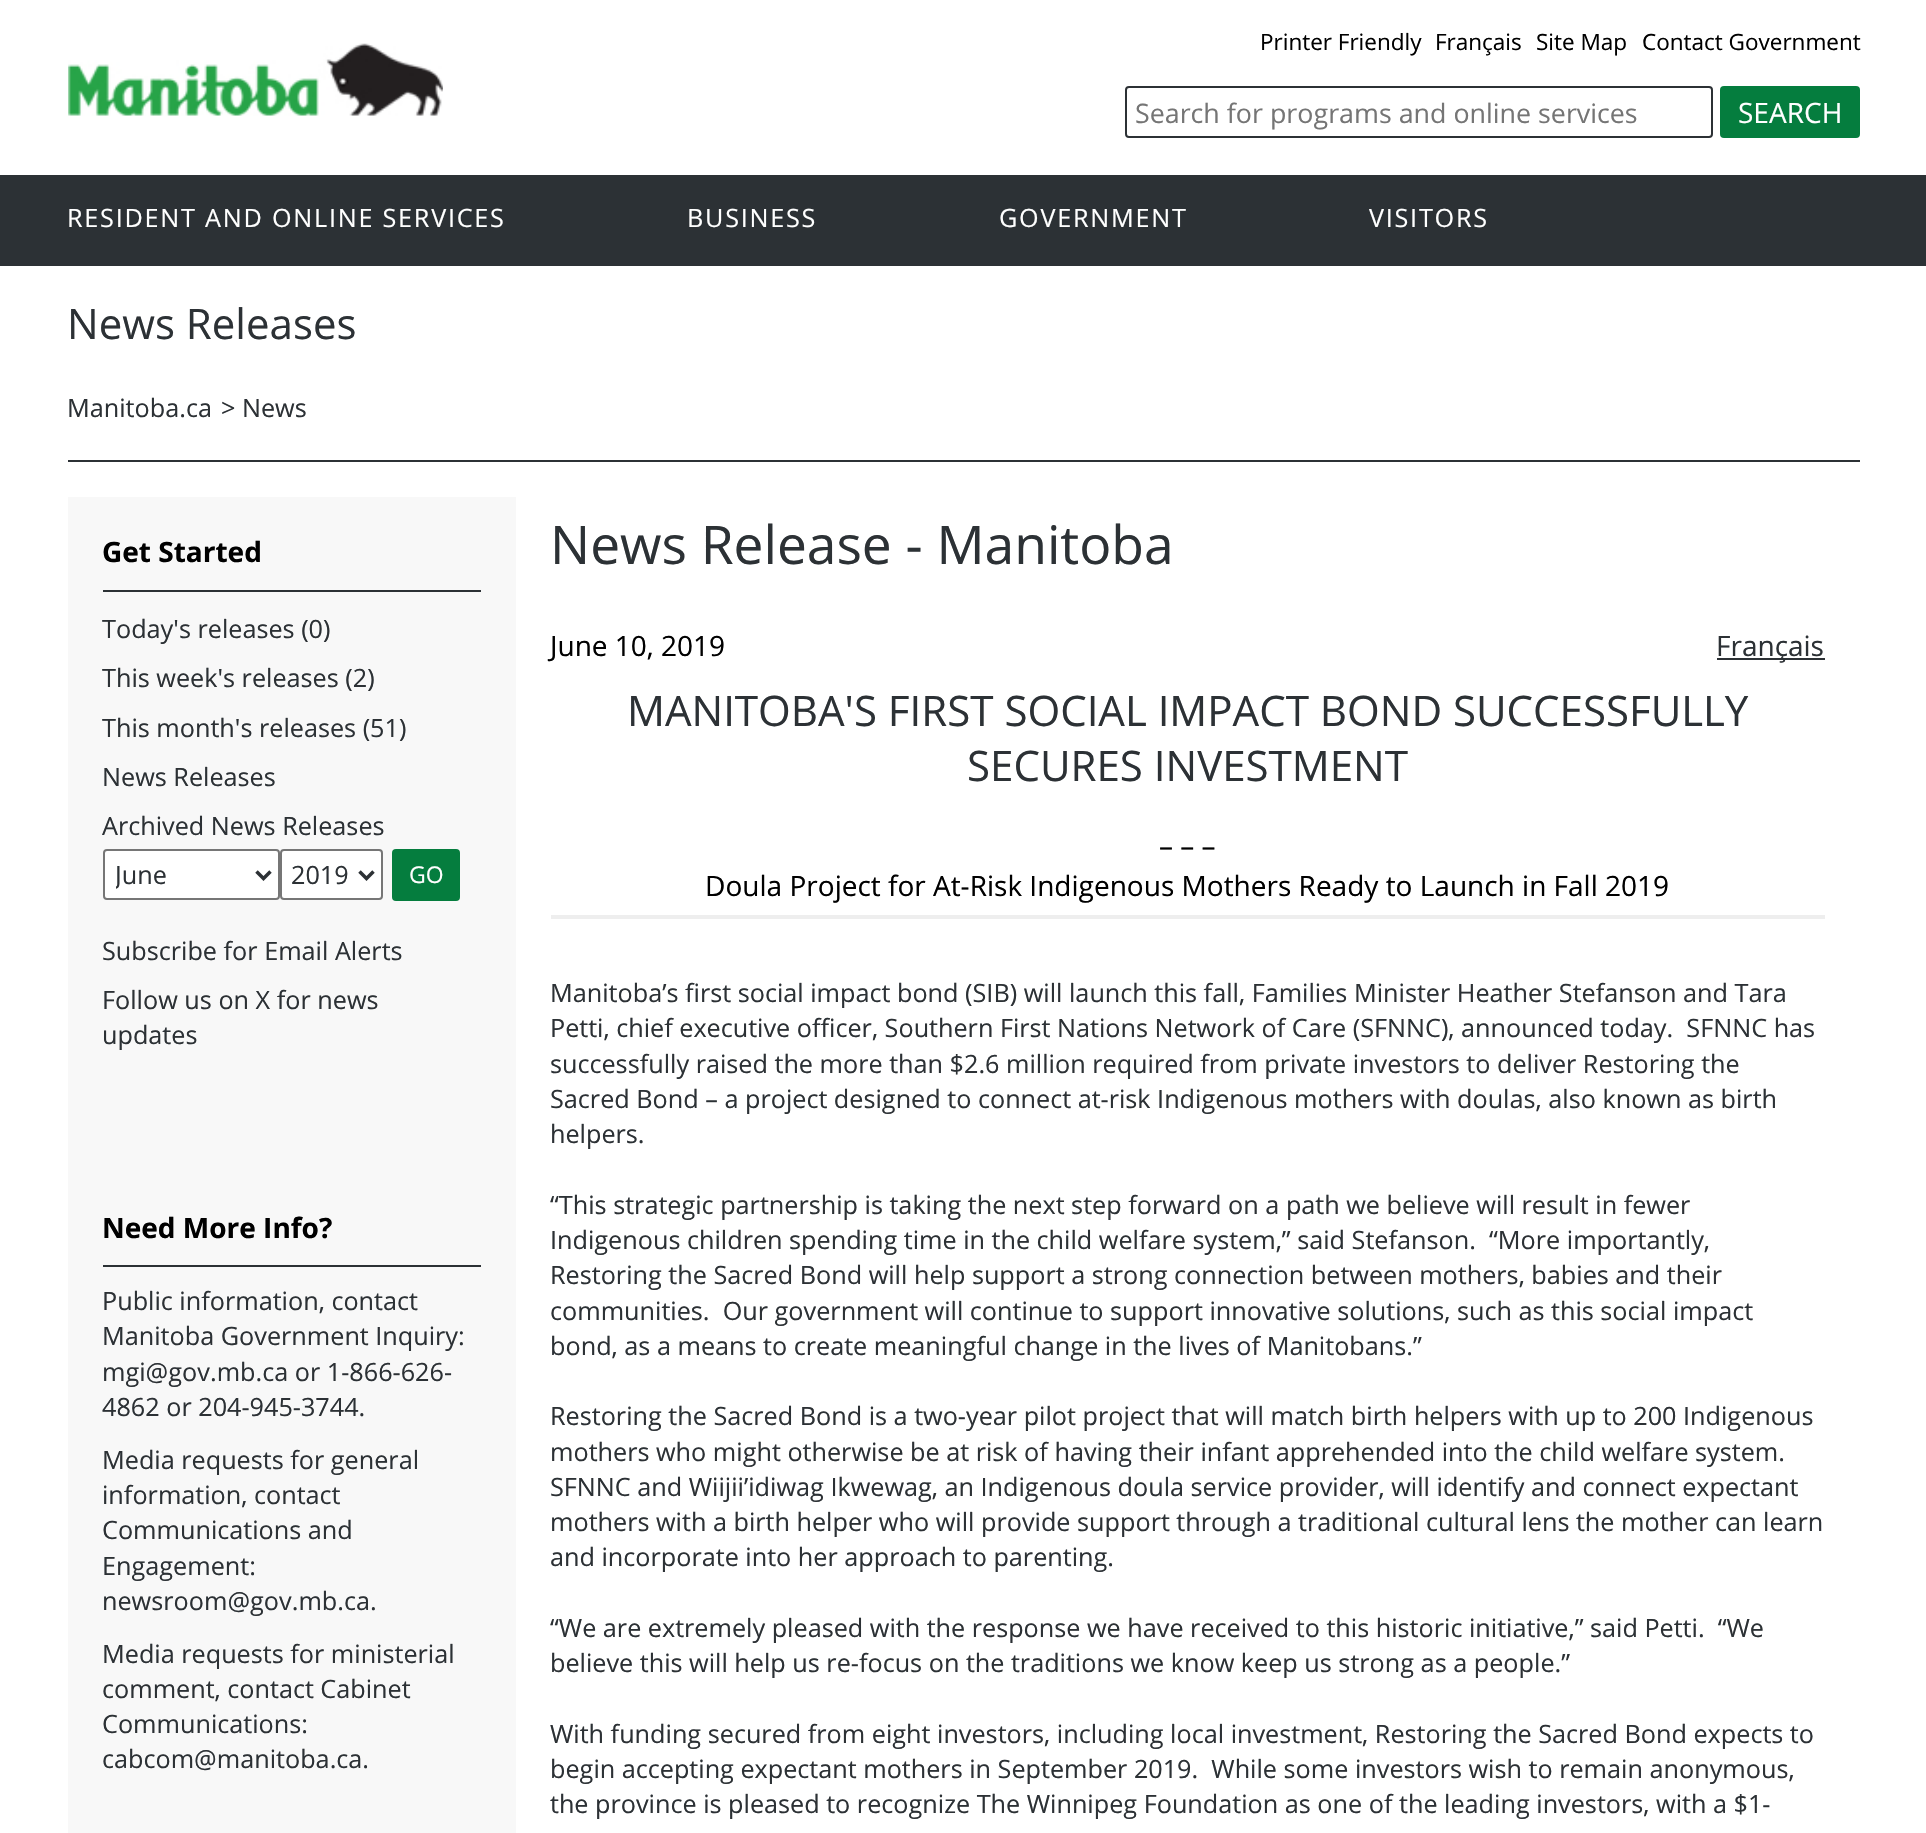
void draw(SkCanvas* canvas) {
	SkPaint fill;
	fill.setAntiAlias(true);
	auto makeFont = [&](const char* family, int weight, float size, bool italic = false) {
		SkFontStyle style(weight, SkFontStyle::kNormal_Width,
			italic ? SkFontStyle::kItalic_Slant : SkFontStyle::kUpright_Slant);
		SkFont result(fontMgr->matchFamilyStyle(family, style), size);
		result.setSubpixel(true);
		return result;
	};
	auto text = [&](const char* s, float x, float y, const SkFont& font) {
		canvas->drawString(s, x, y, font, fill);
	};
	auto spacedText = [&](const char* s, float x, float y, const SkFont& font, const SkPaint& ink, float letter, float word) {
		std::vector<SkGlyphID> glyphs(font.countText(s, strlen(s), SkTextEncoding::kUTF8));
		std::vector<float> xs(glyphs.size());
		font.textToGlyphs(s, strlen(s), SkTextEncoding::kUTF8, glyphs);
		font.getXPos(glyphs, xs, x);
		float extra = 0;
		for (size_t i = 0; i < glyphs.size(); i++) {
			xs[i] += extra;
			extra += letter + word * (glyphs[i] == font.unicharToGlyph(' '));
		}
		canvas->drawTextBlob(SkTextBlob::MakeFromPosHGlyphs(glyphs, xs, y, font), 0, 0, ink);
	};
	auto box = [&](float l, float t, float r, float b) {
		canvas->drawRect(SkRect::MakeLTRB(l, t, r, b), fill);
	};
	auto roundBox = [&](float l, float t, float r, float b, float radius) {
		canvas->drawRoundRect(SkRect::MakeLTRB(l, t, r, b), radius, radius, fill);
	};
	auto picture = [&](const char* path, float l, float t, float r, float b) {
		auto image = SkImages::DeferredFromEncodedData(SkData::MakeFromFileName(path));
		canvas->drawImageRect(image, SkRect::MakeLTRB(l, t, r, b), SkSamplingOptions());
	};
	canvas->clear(0xFFFFFFFF);
	picture("image0.png", 68, 43, 443, 116);
	fill.setStyle(SkPaint::kStroke_Style);
	fill.setStrokeWidth(2);
	fill.setColor(0xFF2C3135);
	canvas->drawRoundRect(SkRect::MakeLTRB(1126, 87, 1712, 137), 3, 3, fill);
	fill.setStyle(SkPaint::kFill_Style);
	fill.setColor(0xFF057D3E);
	roundBox(1720, 86, 1860, 138, 4);
	fill.setColor(0xFF2C3135);
	box(0, 175, 1926, 266);
	box(68, 460, 1860, 462);
	fill.setColor(0xFFF8F8F8);
	box(68, 497, 516, 1833);
	fill.setColor(0xFF2C3135);
	box(103, 590, 481, 592);
	fill.setColor(0xFFFFFFFF);
	canvas->drawRoundRect(SkRect::MakeLTRB(104, 850, 279, 899), 3, 3, fill);
	fill.setStyle(SkPaint::kStroke_Style);
	fill.setColor(0xFF767676);
	canvas->drawRoundRect(SkRect::MakeLTRB(104, 850, 279, 899), 3, 3, fill);
	fill.setStrokeWidth(3.5f);
	fill.setColor(0xFF2C3135);
	canvas->drawPath(SkPathBuilder().moveTo(256.5f, 871.5f).lineTo(263.5f, 878.5f).lineTo(270.5f, 871.5f).detach(), fill);
	fill.setStyle(SkPaint::kFill_Style);
	fill.setColor(0xFFFFFFFF);
	canvas->drawRoundRect(SkRect::MakeLTRB(281, 850, 382, 899), 3, 3, fill);
	fill.setStyle(SkPaint::kStroke_Style);
	fill.setStrokeWidth(2);
	fill.setColor(0xFF767676);
	canvas->drawRoundRect(SkRect::MakeLTRB(281, 850, 382, 899), 3, 3, fill);
	fill.setStrokeWidth(3.5f);
	fill.setColor(0xFF2C3135);
	canvas->drawPath(SkPathBuilder().moveTo(359.5f, 871.5f).lineTo(366.5f, 878.5f).lineTo(373.5f, 871.5f).detach(), fill);
	fill.setStyle(SkPaint::kFill_Style);
	fill.setColor(0xFF057D3E);
	roundBox(392, 849, 460, 901, 4);
	fill.setColor(0xFF2C3135);
	box(103, 1265, 481, 1267);
	box(1717, 658, 1825, 660);
	fill.setColor(0xFFEEEEEE);
	box(551, 915, 1825, 919);
	auto font1 = makeFont("Open Sans", 400, 22.5f);
	fill.setColor(0xFF000000);
	text("Printer Friendly", 1260, 50, font1);
	text("Français", 1435, 50, font1);
	text("Site Map", 1536, 50, font1);
	text("Contact Government", 1642, 50, font1);
	auto font2 = makeFont("Open Sans", 400, 26.8f);
	fill.setColor(0xFF757575);
	text("Search for programs and online services", 1135, 123, font2);
	auto font3 = makeFont("Open Sans", 400, 28);
	fill.setColor(0xFFFFFFFF);
	text("SEARCH", 1738, 123, font3);
	auto font4 = makeFont("Open Sans", 400, 25.2f);
	spacedText("RESIDENT AND ONLINE SERVICES", 67, 227, font4, fill, 1.75f, 0);
	spacedText("BUSINESS", 687, 227, font4, fill, 1.75f, 0);
	spacedText("GOVERNMENT", 999, 227, font4, fill, 1.75f, 0);
	spacedText("VISITORS", 1369, 227, font4, fill, 1.75f, 0);
	auto font5 = makeFont("Open Sans", 400, 42);
	fill.setColor(0xFF2C3135);
	text("News Releases", 67, 339, font5);
	text("Manitoba.ca", 67, 417, font4);
	text("> News", 221, 417, font4);
	auto font6 = makeFont("Open Sans", 700, 28);
	fill.setColor(0xFF000000);
	text("Get Started", 102, 562, font6);
	fill.setColor(0xFF2C3135);
	text("Today's releases (0)", 102, 638, font4);
	text("This week's releases (2)", 102, 687, font4);
	text("This month's releases (51)", 102, 737, font4);
	text("News Releases", 102, 786, font4);
	text("Archived News Releases", 102, 835, font4);
	canvas->save();
	canvas->clipRect(SkRect::MakeLTRB(116, 856, 247, 893));
	text("June", 115, 884, font4);
	canvas->restore();
	text("2019", 291, 884, font4);
	auto font7 = makeFont("Open Sans", 400, 23);
	fill.setColor(0xFFFFFFFF);
	text("GO", 409, 883, font7);
	fill.setColor(0xFF2C3135);
	text("Subscribe for Email Alerts", 102, 960, font4);
	text("Follow us on X for news", 102, 1009, font4);
	text("updates", 102, 1044, font4);
	fill.setColor(0xFF000000);
	text("Need More Info?", 102, 1238, font6);
	fill.setColor(0xFF2C3135);
	text("Public information, contact", 102, 1310, font4);
	text("Manitoba Government Inquiry:", 102, 1345, font4);
	text("mgi@gov.mb.ca or 1-866-626-", 102, 1381, font4);
	text("4862 or 204-945-3744.", 102, 1416, font4);
	text("Media requests for general", 102, 1469, font4);
	text("information, contact", 102, 1504, font4);
	text("Communications and", 102, 1539, font4);
	text("Engagement:", 102, 1575, font4);
	text("newsroom@gov.mb.ca.", 102, 1610, font4);
	text("Media requests for ministerial", 102, 1663, font4);
	text("comment, contact Cabinet", 102, 1698, font4);
	text("Communications:", 102, 1733, font4);
	text("cabcom@manitoba.ca.", 102, 1768, font4);
	auto font8 = makeFont("Open Sans", 400, 53.25f);
	text("News Release - Manitoba", 550, 564, font8);
	fill.setColor(0xFF000000);
	text("June 10, 2019", 550, 656, font3);
	fill.setColor(0xFF2C3135);
	text("Français", 1716, 656, font3);
	text("MANITOBA'S FIRST SOCIAL IMPACT BOND SUCCESSFULLY", 627, 726, font5);
	text("SECURES INVESTMENT", 967, 781, font5);
	fill.setColor(0xFF000000);
	text("– – –", 1159, 856, font3);
	text("Doula Project for At-Risk Indigenous Mothers Ready to Launch in Fall 2019", 705, 896, font3);
	fill.setColor(0xFF2C3135);
	text("Manitoba’s first social impact bond (SIB) will launch this fall, Families Minister Heather Stefanson and Tara", 550, 1002, font4);
	text("Petti, chief executive officer, Southern First Nations Network of Care (SFNNC), announced today.  SFNNC has", 550, 1037, font4);
	text("successfully raised the more than $2.6 million required from private investors to deliver Restoring the", 550, 1073, font4);
	text("Sacred Bond – a project designed to connect at-risk Indigenous mothers with doulas, also known as birth", 550, 1108, font4);
	text("helpers.", 550, 1143, font4);
	text("“This strategic partnership is taking the next step forward on a path we believe will result in fewer", 550, 1214, font4);
	text("Indigenous children spending time in the child welfare system,” said Stefanson.  “More importantly,", 550, 1249, font4);
	text("Restoring the Sacred Bond will help support a strong connection between mothers, babies and their", 550, 1284, font4);
	text("communities.  Our government will continue to support innovative solutions, such as this social impact", 550, 1320, font4);
	text("bond, as a means to create meaningful change in the lives of Manitobans.”", 550, 1355, font4);
	text("Restoring the Sacred Bond is a two-year pilot project that will match birth helpers with up to 200 Indigenous", 550, 1425, font4);
	text("mothers who might otherwise be at risk of having their infant apprehended into the child welfare system.", 550, 1461, font4);
	text("SFNNC and Wiijii’idiwag Ikwewag, an Indigenous doula service provider, will identify and connect expectant", 550, 1496, font4);
	text("mothers with a birth helper who will provide support through a traditional cultural lens the mother can learn", 550, 1531, font4);
	text("and incorporate into her approach to parenting.", 550, 1566, font4);
	text("“We are extremely pleased with the response we have received to this historic initiative,” said Petti.  “We", 550, 1637, font4);
	text("believe this will help us re-focus on the traditions we know keep us strong as a people.”", 550, 1672, font4);
	text("With funding secured from eight investors, including local investment, Restoring the Sacred Bond expects to", 550, 1743, font4);
	text("begin accepting expectant mothers in September 2019.  While some investors wish to remain anonymous,", 550, 1778, font4);
	text("the province is pleased to recognize The Winnipeg Foundation as one of the leading investors, with a $1-", 550, 1813, font4);
}
